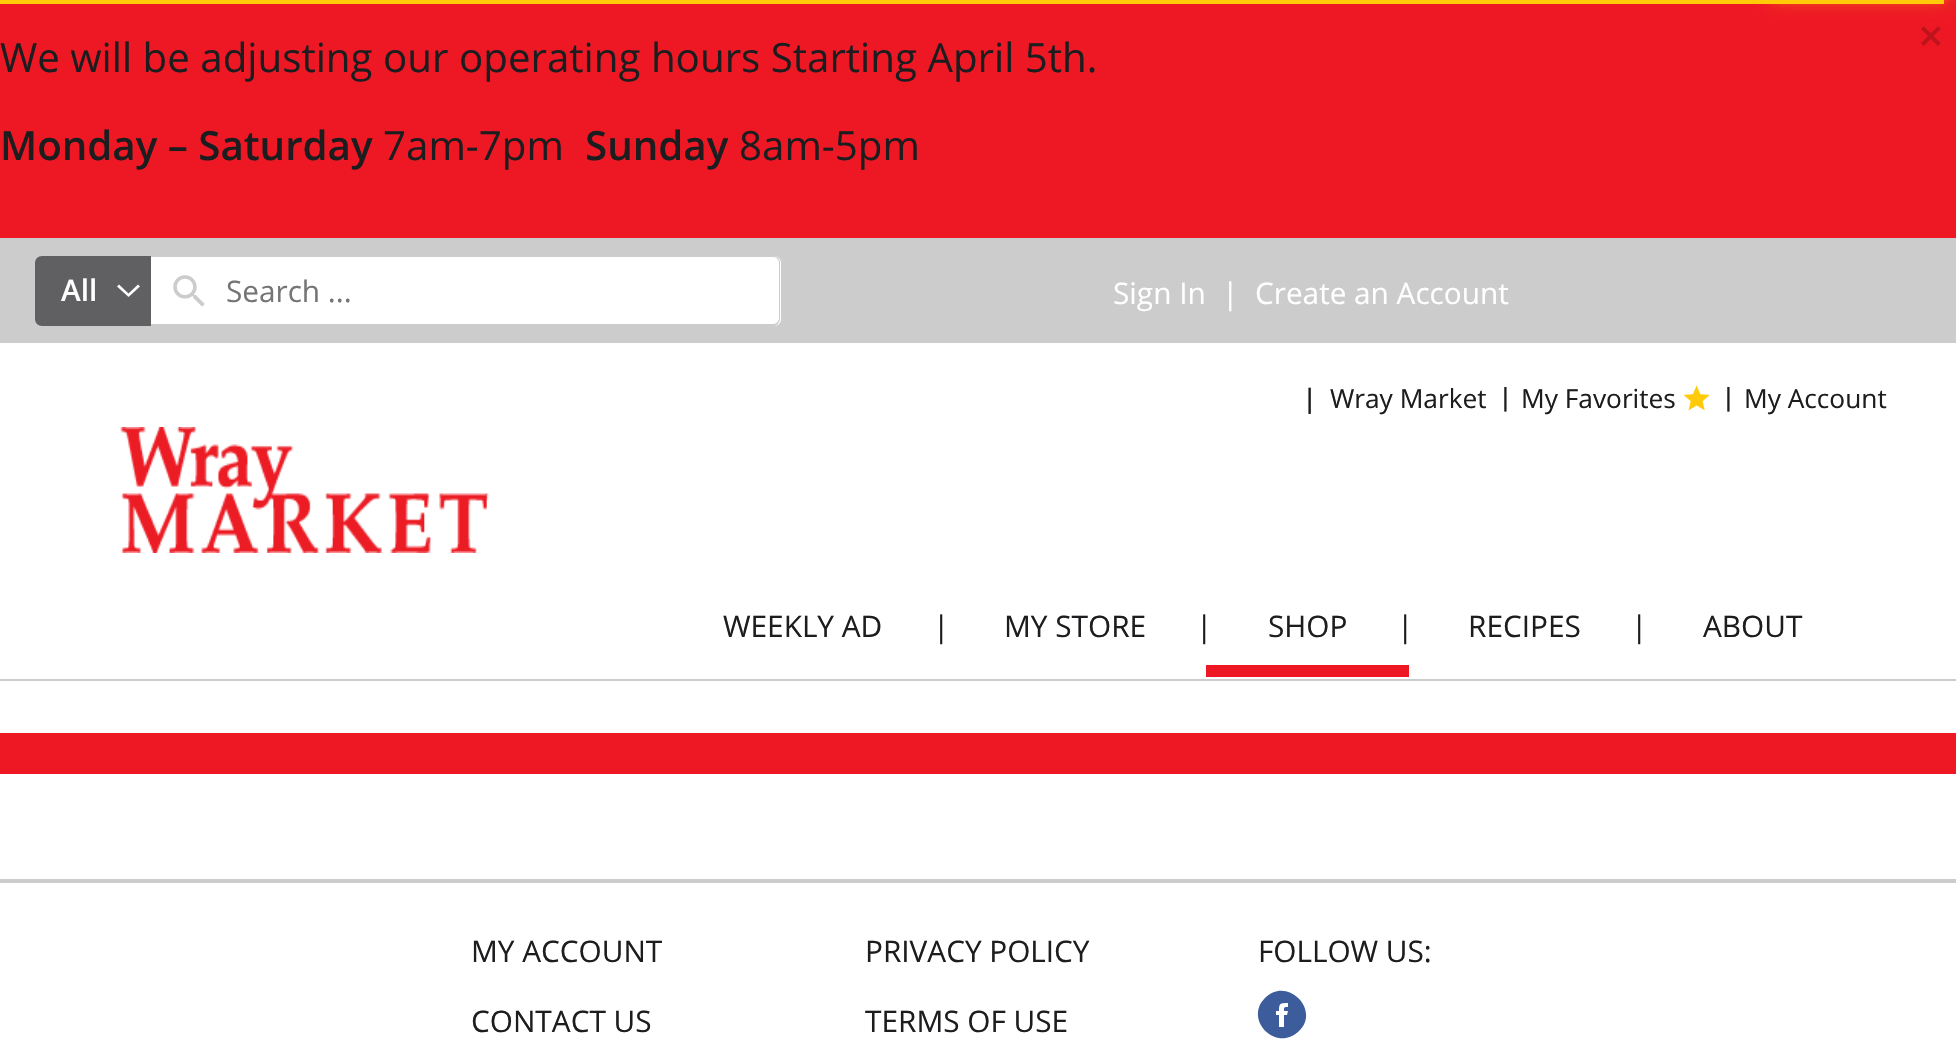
void draw(SkCanvas* canvas) {
	SkPaint fill;
	fill.setAntiAlias(true);
	auto makeFont = [&](const char* family, int weight, float size, bool italic = false) {
		SkFontStyle style(weight, SkFontStyle::kNormal_Width,
			italic ? SkFontStyle::kItalic_Slant : SkFontStyle::kUpright_Slant);
		SkFont result(fontMgr->matchFamilyStyle(family, style), size);
		result.setSubpixel(true);
		return result;
	};
	auto text = [&](const char* s, float x, float y, const SkFont& font) {
		canvas->drawString(s, x, y, font, fill);
	};
	auto box = [&](float l, float t, float r, float b) {
		canvas->drawRect(SkRect::MakeLTRB(l, t, r, b), fill);
	};
	auto picture = [&](const char* path, float l, float t, float r, float b) {
		auto image = SkImages::DeferredFromEncodedData(SkData::MakeFromFileName(path));
		canvas->drawImageRect(image, SkRect::MakeLTRB(l, t, r, b), SkSamplingOptions());
	};
	canvas->clear(0xFFFFFFFF);
	fill.setColor(0xFFEE1824);
	box(0, 0, 1956, 238);
	fill.setColor(0xFFFFCB08);
	box(0, 0, 1944, 4);
	fill.setMaskFilter(SkMaskFilter::MakeBlur(kNormal_SkBlurStyle, 4.5f));
	canvas->drawRect(SkRect::MakeLTRB(1771, -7, 1946, -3), fill);
	fill.setMaskFilter(nullptr);
	fill.setMaskFilter(SkMaskFilter::MakeBlur(kNormal_SkBlurStyle, 9));
	canvas->drawRect(SkRect::MakeLTRB(1771, -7, 1946, -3), fill);
	fill.setMaskFilter(nullptr);
	fill.setColor(0xFFCCCCCC);
	box(0, 238, 1956, 343);
	fill.setColor(0xFFFFFFFF);
	canvas->drawPath(SkPathBuilder().moveTo(149, 256).lineTo(774, 256).cubicTo(778, 256, 781, 259, 781, 263).lineTo(781, 319).cubicTo(781, 323, 778, 326, 774, 326).lineTo(149, 326).close().detach(), fill);
	fill.setColor(0xFFCCCCCC);
	canvas->drawPath(SkPathBuilder(SkPathFillType::kEvenOdd).moveTo(149, 256).lineTo(774, 256).cubicTo(777, 256, 780, 259, 780, 262).lineTo(780, 318).cubicTo(780, 322, 777, 326, 774, 326).lineTo(149, 326).close().moveTo(149, 257).lineTo(774, 257).cubicTo(776, 257, 779, 260, 779, 262).lineTo(779, 318).cubicTo(779, 321, 776, 324, 774, 324).lineTo(149, 324).close().detach(), fill);
	fill.setColor(0xFF606062);
	canvas->drawPath(SkPathBuilder().moveTo(42, 256).lineTo(151, 256).lineTo(151, 326).lineTo(42, 326).cubicTo(38, 326, 35, 323, 35, 319).lineTo(35, 263).cubicTo(35, 259, 38, 256, 42, 256).close().detach(), fill);
	fill.setColor(0xFFFFFFFF);
	canvas->drawPath(SkPathBuilder().moveTo(127.5f, 296).lineTo(117, 286.5f).lineTo(119, 284.5f).lineTo(128.5f, 293.5f).lineTo(138, 284.5f).lineTo(140, 286.5f).lineTo(128.5f, 297).close().detach(), fill);
	picture("image0.png", 173, 275, 205, 307);
	picture("image1.png", 1683, 385, 1710, 411);
	picture("image2.png", 120, 427, 489, 553);
	fill.setColor(0xFFCCCCCC);
	box(0, 679, 1956, 681);
	fill.setColor(0xFFEE1824);
	box(1206, 665, 1409, 677);
	box(0, 733, 1956, 774);
	fill.setColor(0xFFCCCCCC);
	box(0, 879, 1956, 883);
	fill.setColor(0xFF3C5C9C);
	canvas->drawPath(SkPathBuilder().moveTo(1299, 1031).cubicTo(1277, 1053, 1243, 1020, 1265, 998).cubicTo(1287, 976, 1321, 1010, 1299, 1031).close().moveTo(1287, 1015).lineTo(1288, 1011).lineTo(1284, 1011).cubicTo(1284, 1007, 1284, 1007, 1288, 1007).lineTo(1288, 1003).cubicTo(1280, 1003, 1279, 1003, 1279, 1011).lineTo(1276, 1011).lineTo(1276, 1015).lineTo(1279, 1015).lineTo(1279, 1027).lineTo(1284, 1027).lineTo(1284, 1015).close().detach(), fill);
	auto font1 = makeFont("Open Sans", 600, 45);
	fill.setColor(0xFFBE131D);
	text("×", 1918, 52, font1);
	auto font2 = makeFont("Open Sans", 400, 40.25f);
	fill.setColor(0xFF1D1D1F);
	text("We will be adjusting our operating hours Starting April 5th.", 0, 72, font2);
	auto font3 = makeFont("Open Sans", 600, 40.25f);
	text("Monday – Saturday", 0, 160, font3);
	text("7am-7pm", 383, 160, font2);
	text("Sunday", 585, 160, font3);
	text("8am-5pm", 739, 160, font2);
	auto font4 = makeFont("Open Sans", 600, 29.75f);
	fill.setColor(0xFFFFFFFF);
	text("All", 61, 301, font4);
	auto font5 = makeFont("Open Sans", 400, 29.75f);
	fill.setColor(0xFF757575);
	text("Search ...", 226, 302, font5);
	fill.setColor(0xFFFFFFFF);
	text("Sign In", 1113, 304, font5);
	text("|", 1222, 304, font5);
	text("Create an Account", 1255, 304, font5);
	auto font6 = makeFont("Liberation Sans", 400, 28);
	fill.setColor(0xFF1D1D1F);
	text("|", 1306, 408, font6);
	auto font7 = makeFont("Open Sans", 400, 26.25f);
	text("Wray Market", 1330, 408, font7);
	auto font8 = makeFont("Liberation Sans", 400, 26.25f);
	text("|", 1502, 406, font8);
	text("My Favorites", 1521, 408, font7);
	text("|", 1725, 406, font8);
	text("My Account", 1744, 408, font7);
	text("WEEKLY AD", 723, 637, font5);
	text("|", 933, 637, font5);
	text("MY STORE", 1004, 637, font5);
	text("|", 1196, 637, font5);
	text("SHOP", 1268, 637, font5);
	text("|", 1397, 637, font5);
	text("RECIPES", 1468, 637, font5);
	text("|", 1631, 637, font5);
	text("ABOUT", 1703, 637, font5);
	text("MY ACCOUNT", 471, 962, font5);
	text("CONTACT US", 471, 1032, font5);
	text("PRIVACY POLICY", 865, 962, font5);
	text("TERMS OF USE", 865, 1032, font5);
	text("FOLLOW US:", 1258, 962, font5);
}
